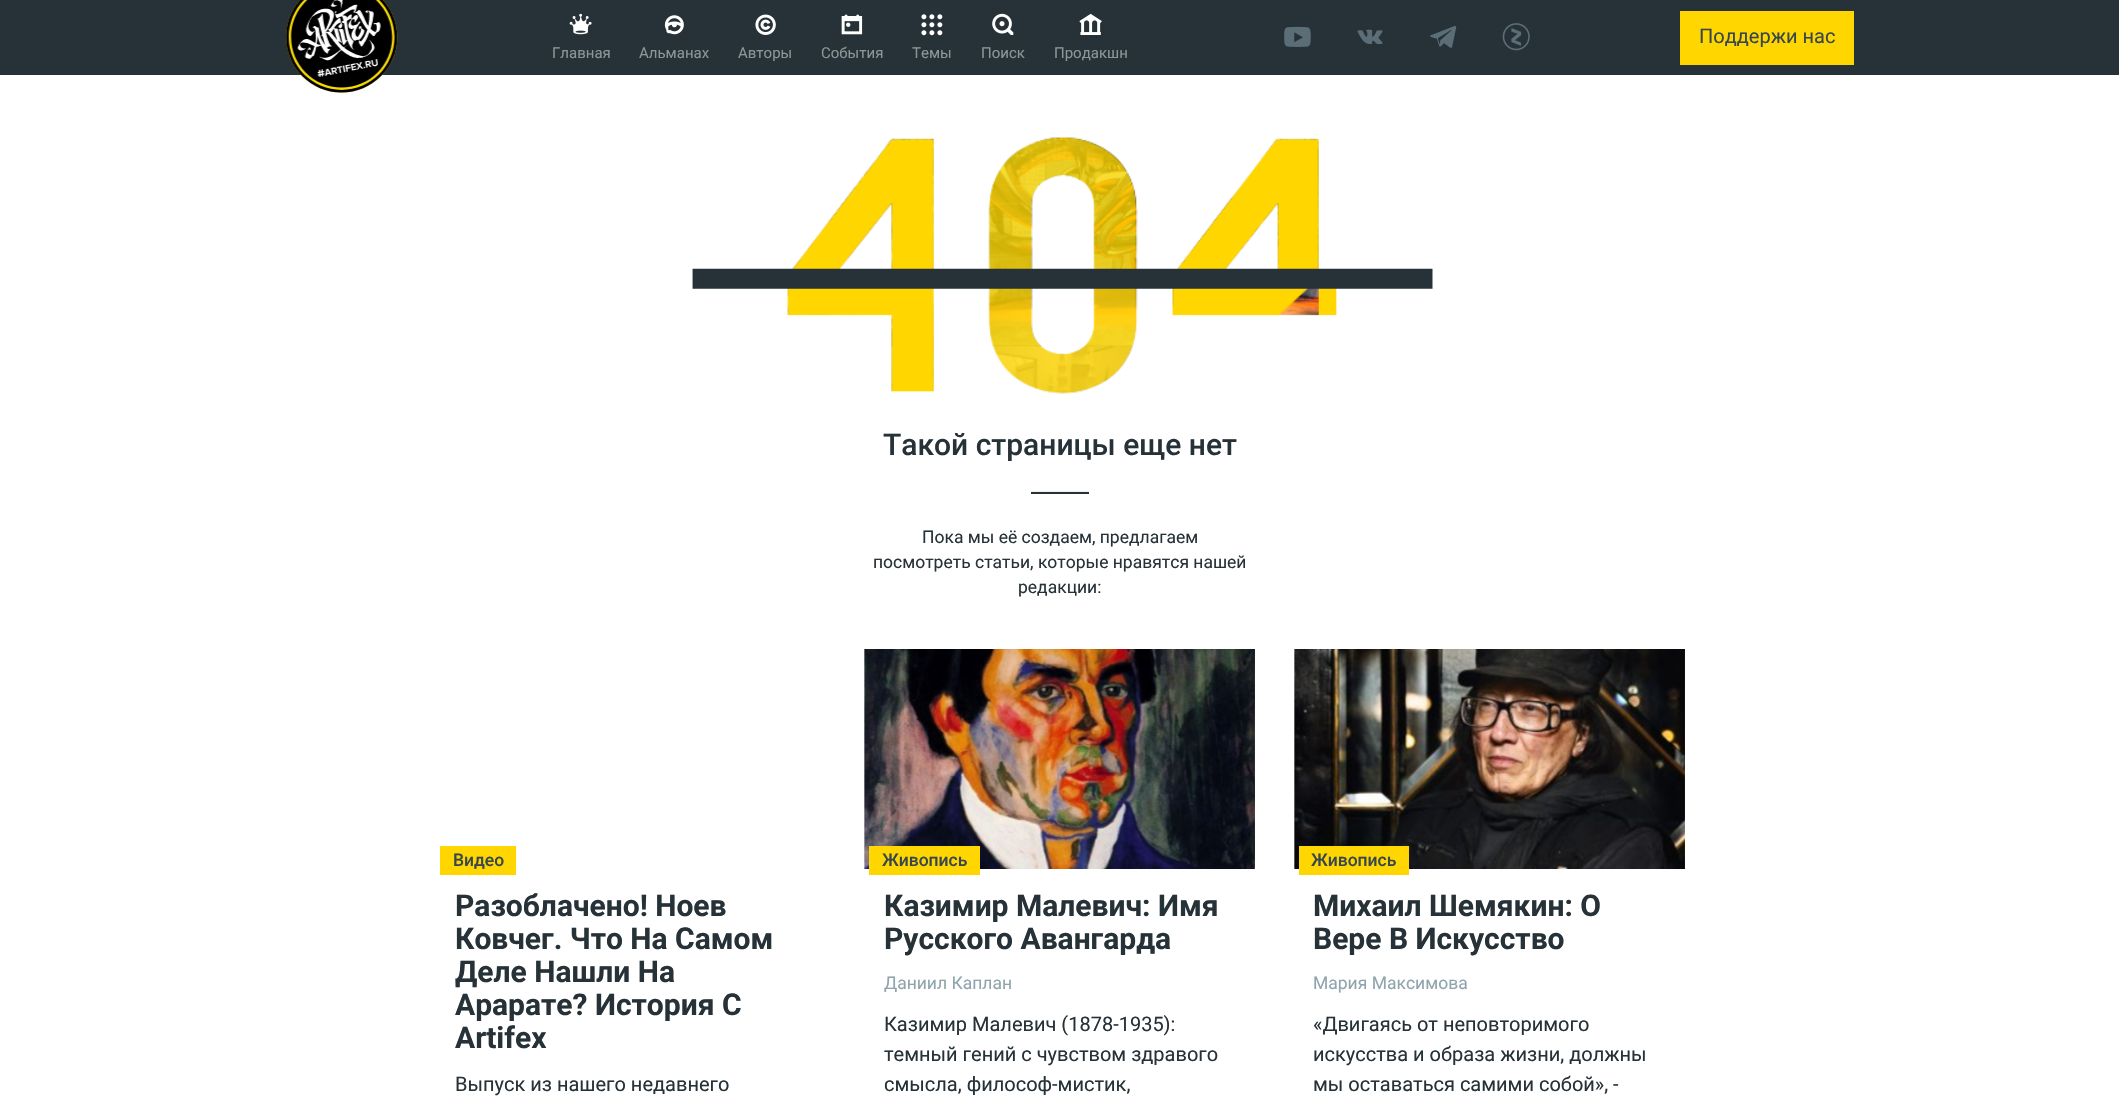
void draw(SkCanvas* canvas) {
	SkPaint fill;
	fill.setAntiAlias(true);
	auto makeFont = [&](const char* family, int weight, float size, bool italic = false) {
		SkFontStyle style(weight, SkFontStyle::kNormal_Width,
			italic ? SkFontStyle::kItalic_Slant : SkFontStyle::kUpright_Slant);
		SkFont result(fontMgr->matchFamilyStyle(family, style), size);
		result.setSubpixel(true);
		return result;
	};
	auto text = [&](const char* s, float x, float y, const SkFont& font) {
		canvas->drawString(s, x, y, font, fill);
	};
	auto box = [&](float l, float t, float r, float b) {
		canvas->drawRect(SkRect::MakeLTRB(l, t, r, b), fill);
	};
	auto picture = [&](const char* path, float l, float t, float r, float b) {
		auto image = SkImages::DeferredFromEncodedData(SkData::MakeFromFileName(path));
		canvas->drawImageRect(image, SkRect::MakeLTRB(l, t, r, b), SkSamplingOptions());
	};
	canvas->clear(0xFFFFFFFF);
	fill.setColor(0xFF263238);
	box(0, 0, 2119, 75);
	picture("image0.png", 285, 0, 398, 93);
	picture("image1.png", 1284, 26, 1311, 47);
	picture("image2.png", 1357, 29, 1383, 44);
	picture("image3.png", 1430, 26, 1457, 48);
	picture("image4.png", 1502, 23, 1530, 51);
	fill.setColor(0xFFFFD600);
	box(1680, 11, 1854, 65);
	picture("image5.png", 569, 13, 592, 35);
	picture("image6.png", 664, 15, 684, 35);
	picture("image7.png", 755, 14, 776, 35);
	picture("image8.png", 841, 14, 863, 35);
	picture("image9.png", 921, 14, 943, 36);
	picture("image10.png", 992, 13, 1014, 35);
	picture("image11.png", 1079, 13, 1102, 35);
	picture("image12.png", 692, 136, 1433, 394);
	fill.setColor(0xFF263238);
	box(1031, 492, 1089, 494);
	fill.setColor(0xFFEEEEEE);
	box(1031, 491, 1089, 492);
	fill.setColor(0xFFFFD600);
	box(440, 846, 516, 875);
	picture("image13.png", 864, 649, 1255, 869);
	box(869, 846, 980, 875);
	picture("image14.png", 1294, 649, 1685, 869);
	box(1299, 846, 1409, 875);
	auto font1 = makeFont("Roboto", 400, 20);
	fill.setColor(0xFF37474F);
	text("Поддержи нас", 1699, 43, font1);
	auto font2 = makeFont("Roboto", 400, 15);
	fill.setColor(0xFF8C9696);
	text("Главная", 552, 58, font2);
	text("Альманах", 639, 58, font2);
	text("Авторы", 738, 58, font2);
	text("События", 821, 58, font2);
	text("Темы", 912, 58, font2);
	text("Поиск", 981, 58, font2);
	text("Продакшн", 1054, 58, font2);
	auto font3 = makeFont("Roboto", 500, 30);
	fill.setColor(0xFF263238);
	text("Такой страницы еще нет", 883, 455, font3);
	auto font4 = makeFont("Roboto", 400, 17.5f);
	text("Пока мы её создаем, предлагаем", 922, 543, font4);
	text("посмотреть статьи, которые нравятся нашей", 873, 568, font4);
	text("редакции:", 1018, 593, font4);
	auto font5 = makeFont("Roboto", 500, 17.5f);
	fill.setColor(0xFF37474F);
	text("Видео", 453, 866, font5);
	auto font6 = makeFont("Roboto", 700, 30);
	fill.setColor(0xFF263238);
	text("Разоблачено! Ноев", 455, 916, font6);
	text("Ковчег. Что На Самом", 455, 949, font6);
	text("Деле Нашли На", 455, 982, font6);
	text("Арарате? История С", 455, 1015, font6);
	text("Artifex", 455, 1048, font6);
	text("Выпуск из нашего недавнего", 455, 1091, font1);
	fill.setColor(0xFF37474F);
	text("Живопись", 882, 866, font5);
	fill.setColor(0xFF263238);
	text("Казимир Малевич: Имя", 884, 916, font6);
	text("Русского Авангарда", 884, 949, font6);
	fill.setColor(0xFF90A4AE);
	text("Даниил Каплан", 884, 989, font4);
	fill.setColor(0xFF263238);
	text("Казимир Малевич (1878-1935):", 884, 1031, font1);
	text("темный гений с чувством здравого", 884, 1061, font1);
	text("смысла, философ-мистик,", 884, 1091, font1);
	fill.setColor(0xFF37474F);
	text("Живопись", 1311, 866, font5);
	fill.setColor(0xFF263238);
	text("Михаил Шемякин: О", 1313, 916, font6);
	text("Вере В Искусство", 1313, 949, font6);
	fill.setColor(0xFF90A4AE);
	text("Мария Максимова", 1313, 989, font4);
	fill.setColor(0xFF263238);
	text("«Двигаясь от неповторимого", 1313, 1031, font1);
	text("искусства и образа жизни, должны", 1313, 1061, font1);
	text("мы оставаться самими собой», -", 1313, 1091, font1);
}
